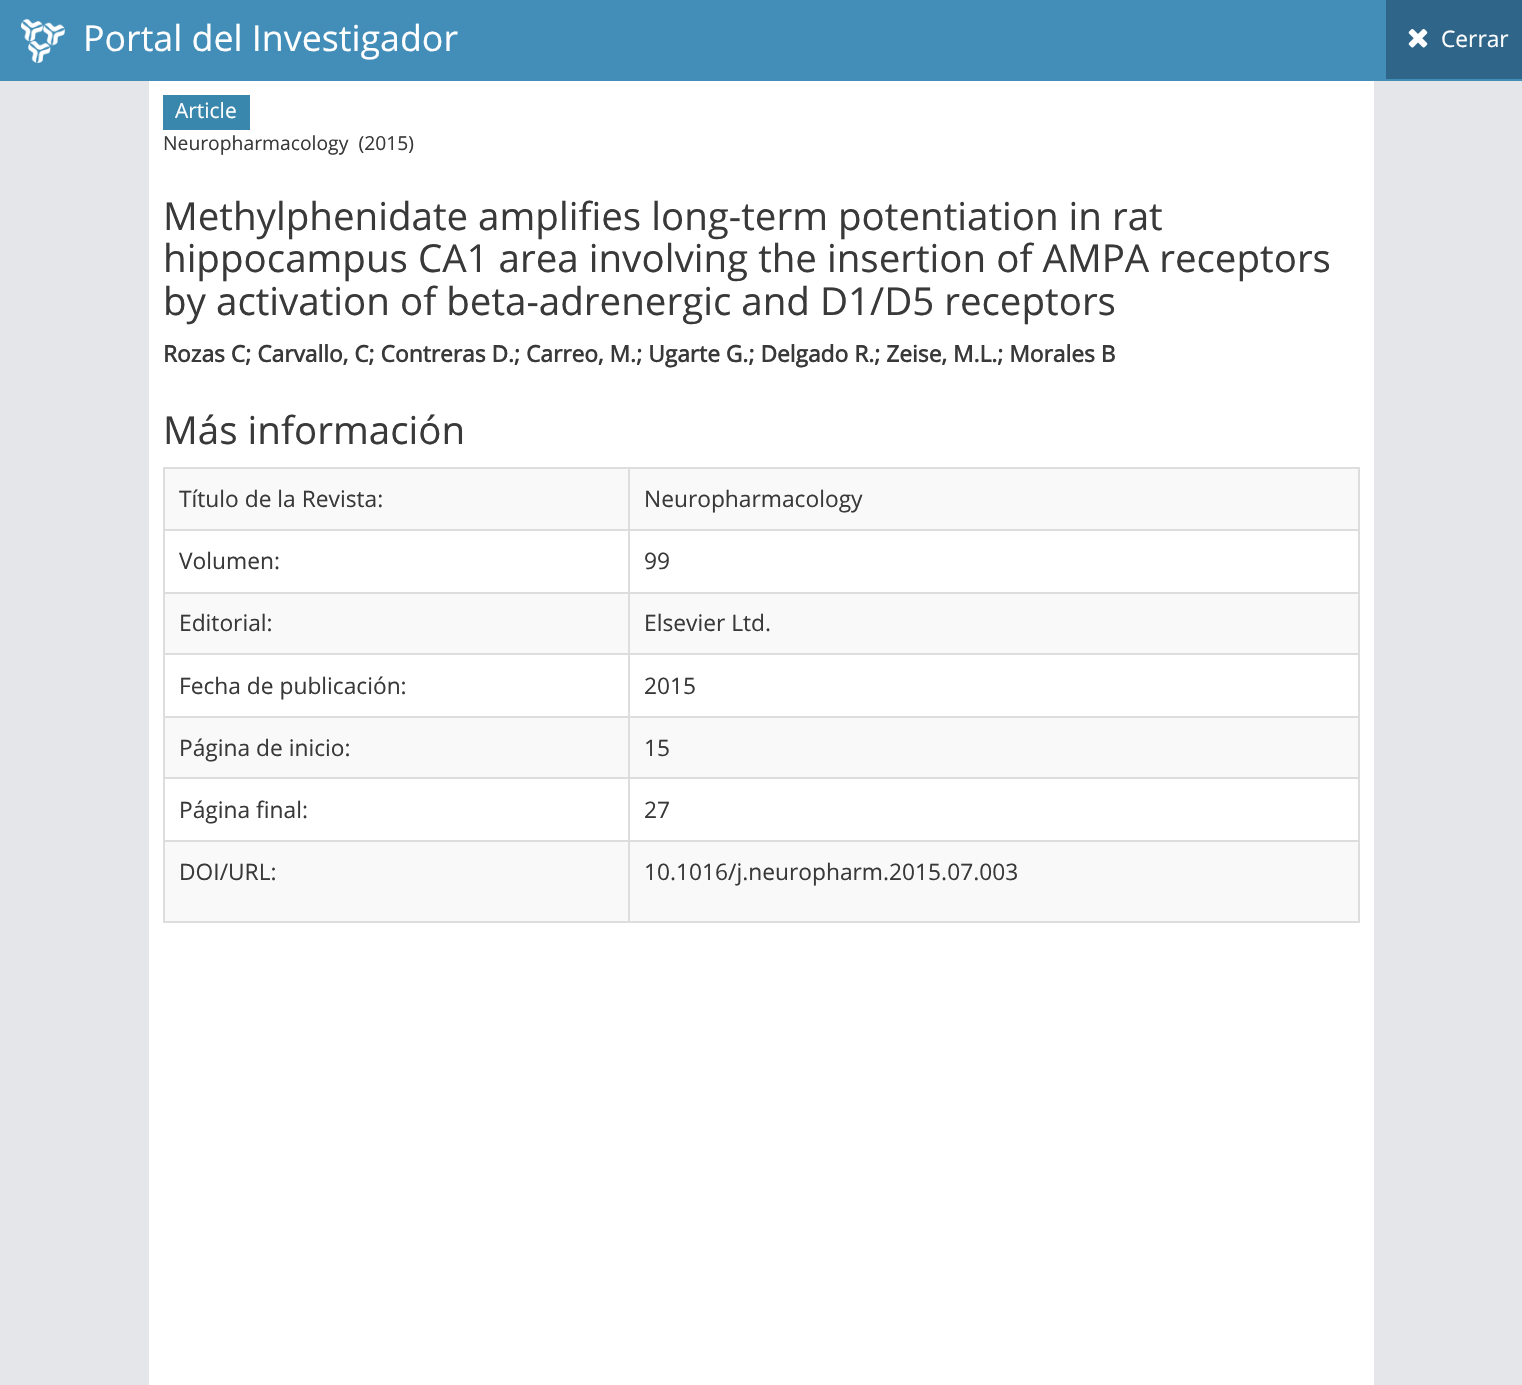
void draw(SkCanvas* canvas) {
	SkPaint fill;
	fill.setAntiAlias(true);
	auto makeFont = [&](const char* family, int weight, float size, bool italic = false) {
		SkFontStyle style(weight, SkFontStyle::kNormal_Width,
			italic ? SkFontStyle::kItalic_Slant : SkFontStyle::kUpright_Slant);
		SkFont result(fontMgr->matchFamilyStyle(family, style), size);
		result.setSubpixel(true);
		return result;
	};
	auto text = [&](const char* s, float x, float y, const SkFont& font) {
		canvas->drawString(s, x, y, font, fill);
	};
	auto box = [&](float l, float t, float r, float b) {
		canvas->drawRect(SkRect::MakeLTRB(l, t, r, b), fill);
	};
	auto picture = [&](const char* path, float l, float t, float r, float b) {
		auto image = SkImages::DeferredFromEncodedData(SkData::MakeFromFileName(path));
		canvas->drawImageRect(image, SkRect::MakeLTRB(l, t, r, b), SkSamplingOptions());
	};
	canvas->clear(0xFFE4E6E9);
	fill.setColor(0xFF438EB9);
	box(0, 0, 1522, 81);
	picture("image0.png", 21, 19, 65, 63);
	fill.setColor(0xFF2E6589);
	box(1386, 0, 1522, 79);
	picture("image1.png", 1408, 29, 1428, 48);
	fill.setColor(0xFFFFFFFF);
	box(149, 81, 1374, 1385);
	fill.setColor(0xFF3A87AD);
	box(163, 95, 250, 130);
	fill.setColor(0xFFDDDDDD);
	box(163, 467, 1360, 469);
	box(1358, 467, 1360, 922);
	box(163, 921, 1360, 923);
	box(163, 467, 165, 922);
	fill.setColor(0xFFF9F9F9);
	box(165, 469, 1358, 529);
	fill.setColor(0xFFDDDDDD);
	box(628, 529, 1360, 531);
	box(628, 592, 1360, 594);
	fill.setColor(0xFFF9F9F9);
	box(165, 594, 1358, 653);
	fill.setColor(0xFFDDDDDD);
	box(628, 653, 1360, 655);
	box(628, 716, 1360, 718);
	fill.setColor(0xFFF9F9F9);
	box(165, 718, 1358, 777);
	fill.setColor(0xFFDDDDDD);
	box(628, 777, 1360, 779);
	box(628, 840, 1360, 842);
	fill.setColor(0xFFF9F9F9);
	box(165, 842, 1358, 921);
	fill.setColor(0xFFDDDDDD);
	box(628, 840, 630, 922);
	box(163, 840, 630, 842);
	box(628, 777, 630, 842);
	box(163, 777, 630, 779);
	box(628, 716, 630, 779);
	box(163, 716, 630, 718);
	box(628, 653, 630, 718);
	box(163, 653, 630, 655);
	box(628, 592, 630, 655);
	box(163, 592, 630, 594);
	box(628, 529, 630, 593);
	box(163, 529, 630, 531);
	box(628, 467, 630, 530);
	auto font1 = makeFont("Open Sans", 400, 35.75f);
	fill.setColor(0xFFFFFFFF);
	text("Portal del Investigador", 83, 51, font1);
	auto font2 = makeFont("Open Sans", 400, 22.75f);
	text("Cerrar", 1441, 47, font2);
	auto font3 = makeFont("Open Sans", 400, 21);
	text("Article", 175, 118, font3);
	auto font4 = makeFont("Open Sans", 400, 19.3f);
	fill.setColor(0xFF393939);
	text("Neuropharmacology  (2015)", 163, 150, font4);
	auto font5 = makeFont("Open Sans", 400, 38.5f);
	text("Methylphenidate amplifies long-term potentiation in rat", 163, 230, font5);
	text("hippocampus CA1 area involving the insertion of AMPA receptors", 163, 272, font5);
	text("by activation of beta-adrenergic and D1/D5 receptors", 163, 315, font5);
	auto font6 = makeFont("Open Sans", 700, 22.75f);
	text("Rozas C; Carvallo, C; Contreras D.; Carreo, M.; Ugarte G.; Delgado R.; Zeise, M.L.; Morales B", 163, 362, font6);
	text("Más información", 163, 444, font5);
	text("Título de la Revista:", 179, 507, font2);
	text("Neuropharmacology", 644, 507, font2);
	text("Volumen:", 179, 569, font2);
	text("99", 644, 569, font2);
	text("Editorial:", 179, 631, font2);
	text("Elsevier Ltd.", 644, 631, font2);
	text("Fecha de publicación:", 179, 694, font2);
	text("2015", 644, 694, font2);
	text("Página de inicio:", 179, 756, font2);
	text("15", 644, 756, font2);
	text("Página final:", 179, 818, font2);
	text("27", 644, 818, font2);
	text("DOI/URL:", 179, 880, font2);
	text("10.1016/j.neuropharm.2015.07.003", 644, 880, font2);
}
